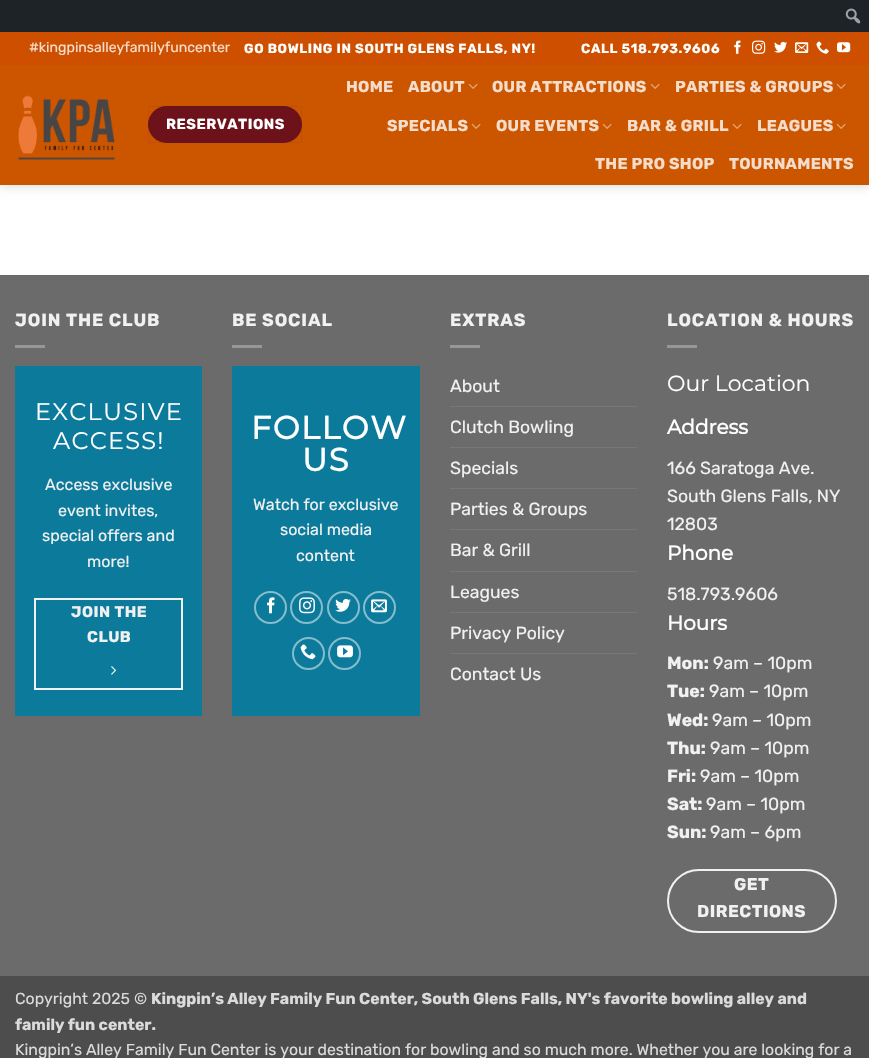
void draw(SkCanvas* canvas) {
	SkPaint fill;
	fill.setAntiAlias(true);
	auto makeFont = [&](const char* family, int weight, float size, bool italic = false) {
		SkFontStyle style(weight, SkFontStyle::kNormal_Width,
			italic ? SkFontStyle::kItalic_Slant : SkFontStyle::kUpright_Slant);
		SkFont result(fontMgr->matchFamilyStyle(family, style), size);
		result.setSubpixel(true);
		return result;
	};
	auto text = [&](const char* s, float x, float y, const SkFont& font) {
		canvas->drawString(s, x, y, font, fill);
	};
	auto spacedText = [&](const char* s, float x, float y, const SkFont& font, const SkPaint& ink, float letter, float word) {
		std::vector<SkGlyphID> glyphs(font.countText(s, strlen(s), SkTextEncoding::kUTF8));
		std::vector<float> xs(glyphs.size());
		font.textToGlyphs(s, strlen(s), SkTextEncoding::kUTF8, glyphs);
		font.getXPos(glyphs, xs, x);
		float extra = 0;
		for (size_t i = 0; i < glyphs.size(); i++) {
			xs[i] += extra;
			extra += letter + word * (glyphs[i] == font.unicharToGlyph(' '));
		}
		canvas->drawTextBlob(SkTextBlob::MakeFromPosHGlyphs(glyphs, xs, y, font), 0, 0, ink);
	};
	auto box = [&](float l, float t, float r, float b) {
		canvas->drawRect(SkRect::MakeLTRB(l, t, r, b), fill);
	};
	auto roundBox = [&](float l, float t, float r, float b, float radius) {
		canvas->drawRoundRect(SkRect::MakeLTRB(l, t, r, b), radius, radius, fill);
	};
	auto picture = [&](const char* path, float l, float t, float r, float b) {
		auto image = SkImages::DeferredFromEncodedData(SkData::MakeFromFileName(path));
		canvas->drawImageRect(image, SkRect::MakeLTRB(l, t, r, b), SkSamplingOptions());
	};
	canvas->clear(0xFFFFFFFF);
	fill.setColor(0x26000000);
	fill.setMaskFilter(SkMaskFilter::MakeBlur(kNormal_SkBlurStyle, 5));
	canvas->drawRect(SkRect::MakeLTRB(1, 33, 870, 186), fill);
	fill.setMaskFilter(nullptr);
	fill.setColor(0xFF1D2327);
	box(0, 0, 869, 32);
	picture("image0.png", 845, 8, 861, 24);
	fill.setColor(0xFFCE4F00);
	box(0, 32, 869, 65);
	picture("image1.png", 734, 40, 741, 54);
	picture("image2.png", 752, 40, 766, 54);
	picture("image3.png", 774, 41, 787, 53);
	picture("image4.png", 795, 42, 809, 53);
	picture("image5.png", 816, 41, 829, 54);
	picture("image6.png", 837, 42, 851, 53);
	fill.setColor(0xFFCC5500);
	box(0, 65, 869, 185);
	picture("image7.png", 18, 95, 115, 160);
	fill.setColor(0xFF6D121B);
	roundBox(148, 106, 302, 143, 18.5f);
	fill.setStyle(SkPaint::kStroke_Style);
	fill.setStrokeWidth(1);
	fill.setColor(0x0D000000);
	canvas->drawRect(SkRect::MakeLTRB(148.5f, 106.5f, 301.5f, 142.5f), fill);
	picture("image8.png", 468, 83, 478, 89);
	picture("image8.png", 650, 83, 660, 89);
	picture("image8.png", 836, 83, 846, 89);
	picture("image8.png", 471, 123, 481, 129);
	picture("image8.png", 602, 123, 612, 129);
	picture("image8.png", 732, 123, 742, 129);
	picture("image8.png", 836, 123, 846, 129);
	fill.setStyle(SkPaint::kFill_Style);
	fill.setColor(0xFF6B6B6B);
	box(0, 276, 869, 976);
	fill.setColor(0xFF666666);
	box(0, 275, 869, 276);
	fill.setColor(0xFF979797);
	box(15, 345, 45, 348);
	fill.setColor(0xFF0C7A9B);
	box(15, 366, 202, 716);
	fill.setStyle(SkPaint::kStroke_Style);
	fill.setStrokeWidth(2);
	fill.setColor(0xFFF1F1F1);
	canvas->drawRect(SkRect::MakeLTRB(35, 599, 182, 689), fill);
	picture("image9.png", 111, 666, 117, 675);
	fill.setStyle(SkPaint::kFill_Style);
	fill.setColor(0xFF979797);
	box(232, 345, 262, 348);
	fill.setColor(0xFF0C7A9B);
	box(232, 366, 420, 716);
	fill.setStyle(SkPaint::kStroke_Style);
	fill.setColor(0xFF86BDCD);
	canvas->drawCircle(270.5f, 607.5f, 15.5f, fill);
	picture("image10.png", 267, 597, 275, 614);
	canvas->drawCircle(306.5f, 607.5f, 15.5f, fill);
	picture("image11.png", 299, 597, 315, 614);
	canvas->drawCircle(343.5f, 607.5f, 15.5f, fill);
	picture("image12.png", 335, 598, 351, 612);
	canvas->drawCircle(379.5f, 607.5f, 15.5f, fill);
	picture("image13.png", 371, 599, 387, 613);
	canvas->drawCircle(308.5f, 653.5f, 15.5f, fill);
	picture("image14.png", 300, 644, 316, 660);
	canvas->drawCircle(344.5f, 653.5f, 15.5f, fill);
	picture("image15.png", 337, 645, 353, 658);
	fill.setStyle(SkPaint::kFill_Style);
	fill.setColor(0xFF979797);
	box(450, 345, 480, 348);
	fill.setColor(0xFF777777);
	box(450, 406, 637, 407);
	box(450, 447, 637, 448);
	box(450, 488, 637, 489);
	box(450, 529, 637, 530);
	box(450, 571, 637, 572);
	box(450, 612, 637, 613);
	box(450, 653, 637, 654);
	fill.setColor(0xFF979797);
	box(667, 345, 697, 348);
	fill.setStyle(SkPaint::kStroke_Style);
	fill.setColor(0xFFF1F1F1);
	canvas->drawRoundRect(SkRect::MakeLTRB(668, 870, 836, 932), 31, 31, fill);
	fill.setStyle(SkPaint::kFill_Style);
	fill.setColor(0xFF4D4D4D);
	box(0, 976, 869, 1058);
	auto font1 = makeFont("Rubik", 400, 14.1f);
	fill.setColor(0xFFF5DDCC);
	text("#kingpinsalleyfamilyfuncenter", 29, 52, font1);
	auto font2 = makeFont("Rubik", 700, 13.2f);
	fill.setColor(0xFFFFFFFF);
	spacedText("GO BOWLING IN SOUTH GLENS FALLS, NY!", 244, 53, font2, fill, 0.65f, 0);
	spacedText("CALL 518.793.9606", 581, 53, font2, fill, 0.65f, 0);
	auto font3 = makeFont("Rubik", 700, 14.5f);
	spacedText("RESERVATIONS", 166, 129, font3, fill, 0.5f, 0);
	auto font4 = makeFont("Rubik", 700, 15.85f);
	fill.setColor(0xFFF5DDCC);
	spacedText("HOME", 346, 92, font4, fill, 0.3f, 0);
	spacedText("ABOUT", 408, 92, font4, fill, 0.3f, 0);
	spacedText("OUR ATTRACTIONS", 492, 92, font4, fill, 0.3f, 0);
	spacedText("PARTIES & GROUPS", 675, 92, font4, fill, 0.3f, 0);
	spacedText("SPECIALS", 387, 131, font4, fill, 0.3f, 0);
	spacedText("OUR EVENTS", 496, 131, font4, fill, 0.3f, 0);
	spacedText("BAR & GRILL", 627, 131, font4, fill, 0.3f, 0);
	spacedText("LEAGUES", 757, 131, font4, fill, 0.3f, 0);
	spacedText("THE PRO SHOP", 595, 169, font4, fill, 0.3f, 0);
	spacedText("TOURNAMENTS", 729, 169, font4, fill, 0.3f, 0);
	auto font5 = makeFont("Rubik", 700, 17.6f);
	fill.setColor(0xFFF1F1F1);
	spacedText("JOIN THE CLUB", 15, 326, font5, fill, 0.9f, 0);
	auto font6 = makeFont("Montserrat", 100, 24);
	fill.setColor(0xFFFFFFFF);
	spacedText("EXCLUSIVE", 35, 420, font6, fill, 1.25f, 0);
	spacedText("ACCESS!", 53, 449, font6, fill, 1.25f, 0);
	auto font7 = makeFont("Rubik", 400, 16);
	fill.setColor(0xFFF1F1F1);
	text("Access exclusive", 45, 490, font7);
	text("event invites,", 58, 516, font7);
	text("special offers and", 42, 541, font7);
	text("more!", 87, 567, font7);
	auto font8 = makeFont("Rubik", 700, 15.5f);
	spacedText("JOIN THE", 71, 617, font8, fill, 0.5f, 0);
	spacedText("CLUB", 87, 642, font8, fill, 0.5f, 0);
	spacedText("BE SOCIAL", 232, 326, font5, fill, 0.9f, 0);
	auto font9 = makeFont("Montserrat", 700, 32);
	fill.setColor(0xFFFFFFFF);
	spacedText("FOLLOW", 251, 439, font9, fill, 1.5f, 0);
	spacedText("US", 302, 471, font9, fill, 1.5f, 0);
	fill.setColor(0xFFF1F1F1);
	text("Watch for exclusive", 253, 510, font7);
	text("social media", 280, 535, font7);
	text("content", 296, 561, font7);
	spacedText("EXTRAS", 450, 326, font5, fill, 0.9f, 0);
	auto font10 = makeFont("Rubik", 400, 17.6f);
	text("About", 450, 392, font10);
	text("Clutch Bowling", 450, 433, font10);
	text("Specials", 450, 474, font10);
	text("Parties & Groups", 450, 515, font10);
	text("Bar & Grill", 450, 556, font10);
	text("Leagues", 450, 598, font10);
	text("Privacy Policy", 450, 639, font10);
	text("Contact Us", 450, 680, font10);
	spacedText("LOCATION & HOURS", 667, 326, font5, fill, 0.9f, 0);
	auto font11 = makeFont("Montserrat", 100, 22);
	fill.setColor(0xFFFFFFFF);
	text("Our Location", 667, 391, font11);
	auto font12 = makeFont("Montserrat", 700, 20);
	text("Address", 667, 434, font12);
	fill.setColor(0xFFF1F1F1);
	text("166 Saratoga Ave.", 667, 474, font10);
	text("South Glens Falls, NY", 667, 502, font10);
	text("12803", 667, 530, font10);
	fill.setColor(0xFFFFFFFF);
	text("Phone", 667, 560, font12);
	fill.setColor(0xFFF1F1F1);
	text("518.793.9606", 667, 600, font10);
	fill.setColor(0xFFFFFFFF);
	text("Hours", 667, 630, font12);
	fill.setColor(0xFFF1F1F1);
	text("Mon:", 667, 669, font5);
	text("9am – 10pm", 713, 669, font10);
	text("Tue:", 667, 697, font5);
	text("9am – 10pm", 709, 697, font10);
	text("Wed:", 667, 726, font5);
	text("9am – 10pm", 712, 726, font10);
	text("Thu:", 667, 754, font5);
	text("9am – 10pm", 710, 754, font10);
	text("Fri:", 667, 782, font5);
	text("9am – 10pm", 700, 782, font10);
	text("Sat:", 667, 810, font5);
	text("9am – 10pm", 706, 810, font10);
	text("Sun:", 667, 838, font5);
	text("9am – 6pm", 710, 838, font10);
	auto font13 = makeFont("Rubik", 700, 17);
	spacedText("GET", 734, 890, font13, fill, 0.5f, 0);
	spacedText("DIRECTIONS", 697, 917, font13, fill, 0.5f, 0);
	auto font14 = makeFont("Rubik", 400, 15.85f);
	fill.setColor(0xFFDBDBDB);
	text("Copyright 2025 ©", 15, 1004, font14);
	text("Kingpin’s Alley Family Fun Center, South Glens Falls, NY's favorite bowling alley and", 151, 1004, font4);
	text("family fun center.", 15, 1030, font4);
	text("Kingpin’s Alley Family Fun Center is your destination for bowling and so much more. Whether you are looking for a", 15, 1055, font14);
}
